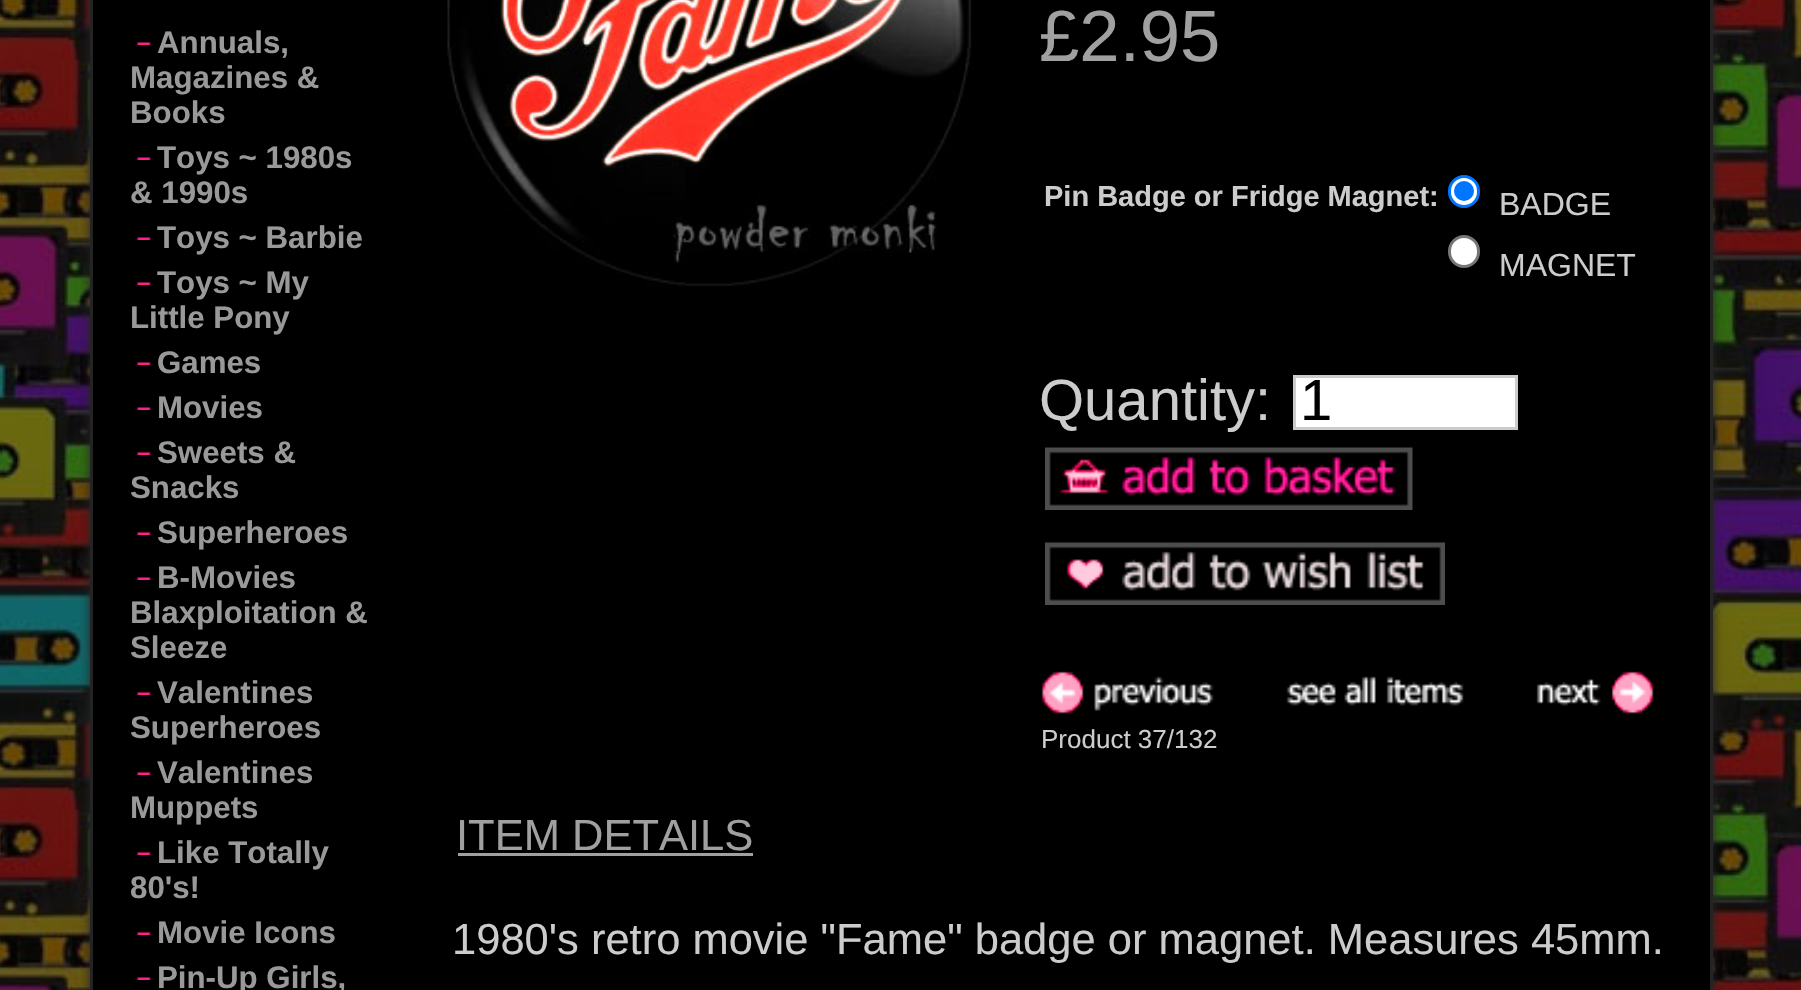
void draw(SkCanvas* canvas) {
	SkPaint fill;
	fill.setAntiAlias(true);
	auto makeFont = [&](const char* family, int weight, float size, bool italic = false) {
		SkFontStyle style(weight, SkFontStyle::kNormal_Width,
			italic ? SkFontStyle::kItalic_Slant : SkFontStyle::kUpright_Slant);
		SkFont result(fontMgr->matchFamilyStyle(family, style), size);
		result.setSubpixel(true);
		return result;
	};
	auto text = [&](const char* s, float x, float y, const SkFont& font) {
		canvas->drawString(s, x, y, font, fill);
	};
	auto box = [&](float l, float t, float r, float b) {
		canvas->drawRect(SkRect::MakeLTRB(l, t, r, b), fill);
	};
	auto picture = [&](const char* path, float l, float t, float r, float b) {
		auto image = SkImages::DeferredFromEncodedData(SkData::MakeFromFileName(path));
		canvas->drawImageRect(image, SkRect::MakeLTRB(l, t, r, b), SkSamplingOptions());
	};
	canvas->clear(0xFFFFFFFF);
	picture("image0.png", 0, 0, 1801, 990);
	fill.setColor(0xFF242424);
	fill.setMaskFilter(SkMaskFilter::MakeBlur(kNormal_SkBlurStyle, 5));
	canvas->drawRect(SkRect::MakeLTRB(90, -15, 1713, 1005), fill);
	fill.setMaskFilter(nullptr);
	fill.setStyle(SkPaint::kStroke_Style);
	fill.setStrokeWidth(3);
	canvas->drawRect(SkRect::MakeLTRB(91.5f, -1.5f, 1711.5f, 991.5f), fill);
	fill.setStyle(SkPaint::kFill_Style);
	fill.setColor(0xFF000000);
	box(93, 0, 1710, 990);
	picture("image1.png", 136, 42, 151, 45);
	picture("image1.png", 136, 157, 151, 160);
	picture("image1.png", 136, 237, 151, 240);
	picture("image1.png", 136, 282, 151, 285);
	picture("image1.png", 136, 362, 151, 365);
	picture("image1.png", 136, 407, 151, 410);
	picture("image1.png", 136, 452, 151, 455);
	picture("image1.png", 136, 532, 151, 535);
	picture("image1.png", 136, 577, 151, 580);
	picture("image1.png", 136, 692, 151, 695);
	picture("image1.png", 136, 772, 151, 775);
	picture("image1.png", 136, 852, 151, 855);
	picture("image1.png", 136, 932, 151, 935);
	picture("image1.png", 136, 977, 151, 980);
	picture("image2.png", 447, 0, 972, 286);
	fill.setColor(0xFFFFFFFF);
	canvas->drawRoundRect(SkRect::MakeLTRB(1449.5f, 176.5f, 1478.5f, 206.5f), 14.5f, 14.5f, fill);
	fill.setStyle(SkPaint::kStroke_Style);
	fill.setColor(0xFF0075FF);
	canvas->drawRoundRect(SkRect::MakeLTRB(1449.5f, 176.5f, 1478.5f, 206.5f), 14.5f, 14.5f, fill);
	fill.setStyle(SkPaint::kFill_Style);
	canvas->drawCircle(1464, 191, 10, fill);
	fill.setColor(0xFFFFFFFF);
	canvas->drawRoundRect(SkRect::MakeLTRB(1449.5f, 236.5f, 1478.5f, 266.5f), 14.5f, 14.5f, fill);
	fill.setStyle(SkPaint::kStroke_Style);
	fill.setColor(0xFF767676);
	canvas->drawRoundRect(SkRect::MakeLTRB(1449.5f, 236.5f, 1478.5f, 266.5f), 14.5f, 14.5f, fill);
	fill.setStyle(SkPaint::kFill_Style);
	fill.setColor(0xFFFFFFFF);
	canvas->drawRect(SkRect::MakeLTRB(1294.5f, 376.5f, 1516.5f, 428.5f), fill);
	fill.setStyle(SkPaint::kStroke_Style);
	fill.setColor(0xFFCCCCCC);
	canvas->drawRect(SkRect::MakeLTRB(1294.5f, 376.5f, 1516.5f, 428.5f), fill);
	picture("image3.png", 1045, 447, 1413, 510);
	picture("image4.png", 1045, 542, 1445, 605);
	picture("image5.png", 1041, 671, 1214, 714);
	picture("image6.png", 1286, 676, 1464, 706);
	picture("image7.png", 1536, 671, 1654, 714);
	fill.setStyle(SkPaint::kFill_Style);
	fill.setColor(0xFFA0A0A0);
	box(458, 853, 753, 856);
	auto font1 = makeFont("Liberation Sans", 700, 31.25f);
	fill.setColor(0xFF999999);
	text("Annuals,", 157, 53, font1);
	text("Magazines &", 130, 88, font1);
	text("Books", 130, 123, font1);
	text("Toys ~ 1980s", 157, 168, font1);
	text("& 1990s", 130, 203, font1);
	text("Toys ~ Barbie", 157, 248, font1);
	text("Toys ~ My", 157, 293, font1);
	text("Little Pony", 130, 328, font1);
	text("Games", 157, 373, font1);
	text("Movies", 157, 418, font1);
	text("Sweets &", 157, 463, font1);
	text("Snacks", 130, 498, font1);
	text("Superheroes", 157, 543, font1);
	text("B-Movies", 157, 588, font1);
	text("Blaxploitation &", 130, 623, font1);
	text("Sleeze", 130, 658, font1);
	text("Valentines", 157, 703, font1);
	text("Superheroes", 130, 738, font1);
	text("Valentines", 157, 783, font1);
	text("Muppets", 130, 818, font1);
	text("Like Totally", 157, 863, font1);
	text("80's!", 130, 898, font1);
	text("Movie Icons", 157, 943, font1);
	text("Pin-Up Girls,", 157, 988, font1);
	auto font2 = makeFont("Liberation Sans", 400, 72.5f);
	fill.setColor(0xFFA0A0A0);
	text("£2.95", 1039, 61, font2);
	auto font3 = makeFont("Liberation Sans", 700, 29);
	fill.setColor(0xFFCCCCCC);
	text("Pin Badge or Fridge Magnet:", 1044, 206, font3);
	auto font4 = makeFont("Liberation Sans", 400, 32);
	text("BADGE", 1499, 215, font4);
	text("MAGNET", 1499, 276, font4);
	auto font5 = makeFont("Liberation Sans", 400, 58);
	text("Quantity:", 1039, 420, font5);
	fill.setColor(0xFF000000);
	text("1", 1300, 420, font5);
	auto font6 = makeFont("Liberation Sans", 400, 26);
	fill.setColor(0xFFCCCCCC);
	text("Product 37/132", 1041, 748, font6);
	auto font7 = makeFont("Liberation Sans", 400, 43.5f);
	fill.setColor(0xFFA0A0A0);
	text("ITEM DETAILS", 456, 850, font7);
	fill.setColor(0xFFCCCCCC);
	text("1980's retro movie \"Fame\" badge or magnet. Measures 45mm.", 452, 954, font7);
}
